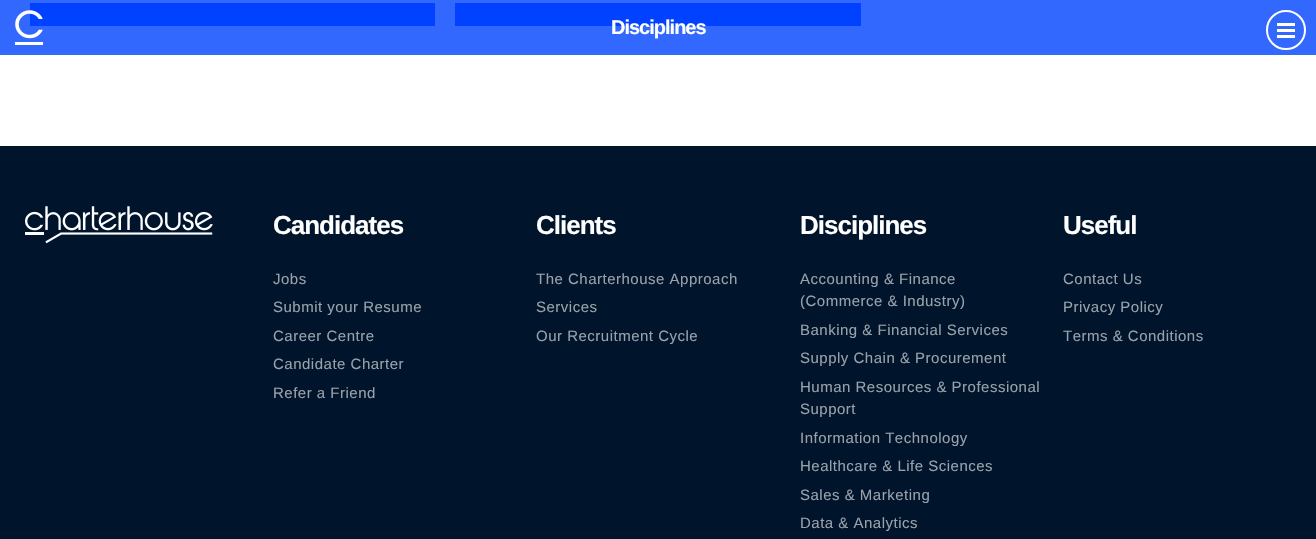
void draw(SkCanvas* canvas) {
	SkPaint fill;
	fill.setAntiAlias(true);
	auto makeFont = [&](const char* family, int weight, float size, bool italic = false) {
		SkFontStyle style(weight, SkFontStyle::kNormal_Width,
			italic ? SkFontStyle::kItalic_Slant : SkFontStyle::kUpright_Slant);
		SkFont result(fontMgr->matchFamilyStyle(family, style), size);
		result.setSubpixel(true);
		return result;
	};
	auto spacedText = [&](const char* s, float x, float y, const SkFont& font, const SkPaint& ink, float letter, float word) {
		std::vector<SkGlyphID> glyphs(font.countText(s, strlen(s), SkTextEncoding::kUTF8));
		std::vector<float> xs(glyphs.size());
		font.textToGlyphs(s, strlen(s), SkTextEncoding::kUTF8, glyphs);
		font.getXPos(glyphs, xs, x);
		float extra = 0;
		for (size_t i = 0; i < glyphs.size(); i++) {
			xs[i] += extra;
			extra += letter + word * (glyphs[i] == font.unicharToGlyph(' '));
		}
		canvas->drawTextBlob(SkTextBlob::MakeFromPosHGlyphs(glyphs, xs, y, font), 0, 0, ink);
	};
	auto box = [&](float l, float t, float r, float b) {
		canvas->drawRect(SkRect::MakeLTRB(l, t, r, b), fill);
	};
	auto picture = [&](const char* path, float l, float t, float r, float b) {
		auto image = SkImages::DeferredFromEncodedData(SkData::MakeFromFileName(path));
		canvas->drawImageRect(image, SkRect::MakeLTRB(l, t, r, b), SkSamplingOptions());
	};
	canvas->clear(0xFFFFFFFF);
	fill.setColor(0xFF3368FF);
	box(0, 0, 1316, 55);
	fill.setColor(0xFF0042FF);
	box(30, 3, 435, 26);
	box(455, 3, 861, 26);
	picture("image0.png", 15, 10, 43, 45);
	fill.setStyle(SkPaint::kStroke_Style);
	fill.setStrokeWidth(2);
	fill.setColor(0xFFFFFFFF);
	canvas->drawCircle(1286, 30, 19, fill);
	fill.setStyle(SkPaint::kFill_Style);
	box(1277, 29, 1295, 32);
	box(1277, 23, 1295, 26);
	box(1277, 35, 1295, 38);
	fill.setColor(0xFF00142B);
	box(0, 146, 1316, 539);
	picture("image1.png", 25, 206, 213, 244);
	auto font1 = makeFont("Liberation Sans", 700, 20);
	fill.setColor(0xFFFFFFFF);
	spacedText("Disciplines", 611, 34, font1, fill, -1, 0);
	auto font2 = makeFont("Liberation Sans", 700, 26);
	spacedText("Candidates", 273, 234, font2, fill, -1, 0);
	auto font3 = makeFont("Liberation Sans", 400, 15);
	fill.setColor(0xFF99A1AA);
	spacedText("Jobs", 273, 284, font3, fill, 0.5f, 0);
	spacedText("Submit your Resume", 273, 312, font3, fill, 0.5f, 0);
	spacedText("Career Centre", 273, 341, font3, fill, 0.5f, 0);
	spacedText("Candidate Charter", 273, 369, font3, fill, 0.5f, 0);
	spacedText("Refer a Friend", 273, 398, font3, fill, 0.5f, 0);
	fill.setColor(0xFFFFFFFF);
	spacedText("Clients", 536, 234, font2, fill, -1, 0);
	fill.setColor(0xFF99A1AA);
	spacedText("The Charterhouse Approach", 536, 284, font3, fill, 0.5f, 0);
	spacedText("Services", 536, 312, font3, fill, 0.5f, 0);
	spacedText("Our Recruitment Cycle", 536, 341, font3, fill, 0.5f, 0);
	fill.setColor(0xFFFFFFFF);
	spacedText("Disciplines", 800, 234, font2, fill, -1, 0);
	fill.setColor(0xFF99A1AA);
	spacedText("Accounting & Finance", 800, 284, font3, fill, 0.5f, 0);
	spacedText("(Commerce & Industry)", 800, 306, font3, fill, 0.5f, 0);
	spacedText("Banking & Financial Services", 800, 335, font3, fill, 0.5f, 0);
	spacedText("Supply Chain & Procurement", 800, 363, font3, fill, 0.5f, 0);
	spacedText("Human Resources & Professional", 800, 392, font3, fill, 0.5f, 0);
	spacedText("Support", 800, 414, font3, fill, 0.5f, 0);
	spacedText("Information Technology", 800, 443, font3, fill, 0.5f, 0);
	spacedText("Healthcare & Life Sciences", 800, 471, font3, fill, 0.5f, 0);
	spacedText("Sales & Marketing", 800, 500, font3, fill, 0.5f, 0);
	spacedText("Data & Analytics", 800, 528, font3, fill, 0.5f, 0);
	fill.setColor(0xFFFFFFFF);
	spacedText("Useful", 1063, 234, font2, fill, -1, 0);
	fill.setColor(0xFF99A1AA);
	spacedText("Contact Us", 1063, 284, font3, fill, 0.5f, 0);
	spacedText("Privacy Policy", 1063, 312, font3, fill, 0.5f, 0);
	spacedText("Terms & Conditions", 1063, 341, font3, fill, 0.5f, 0);
}
